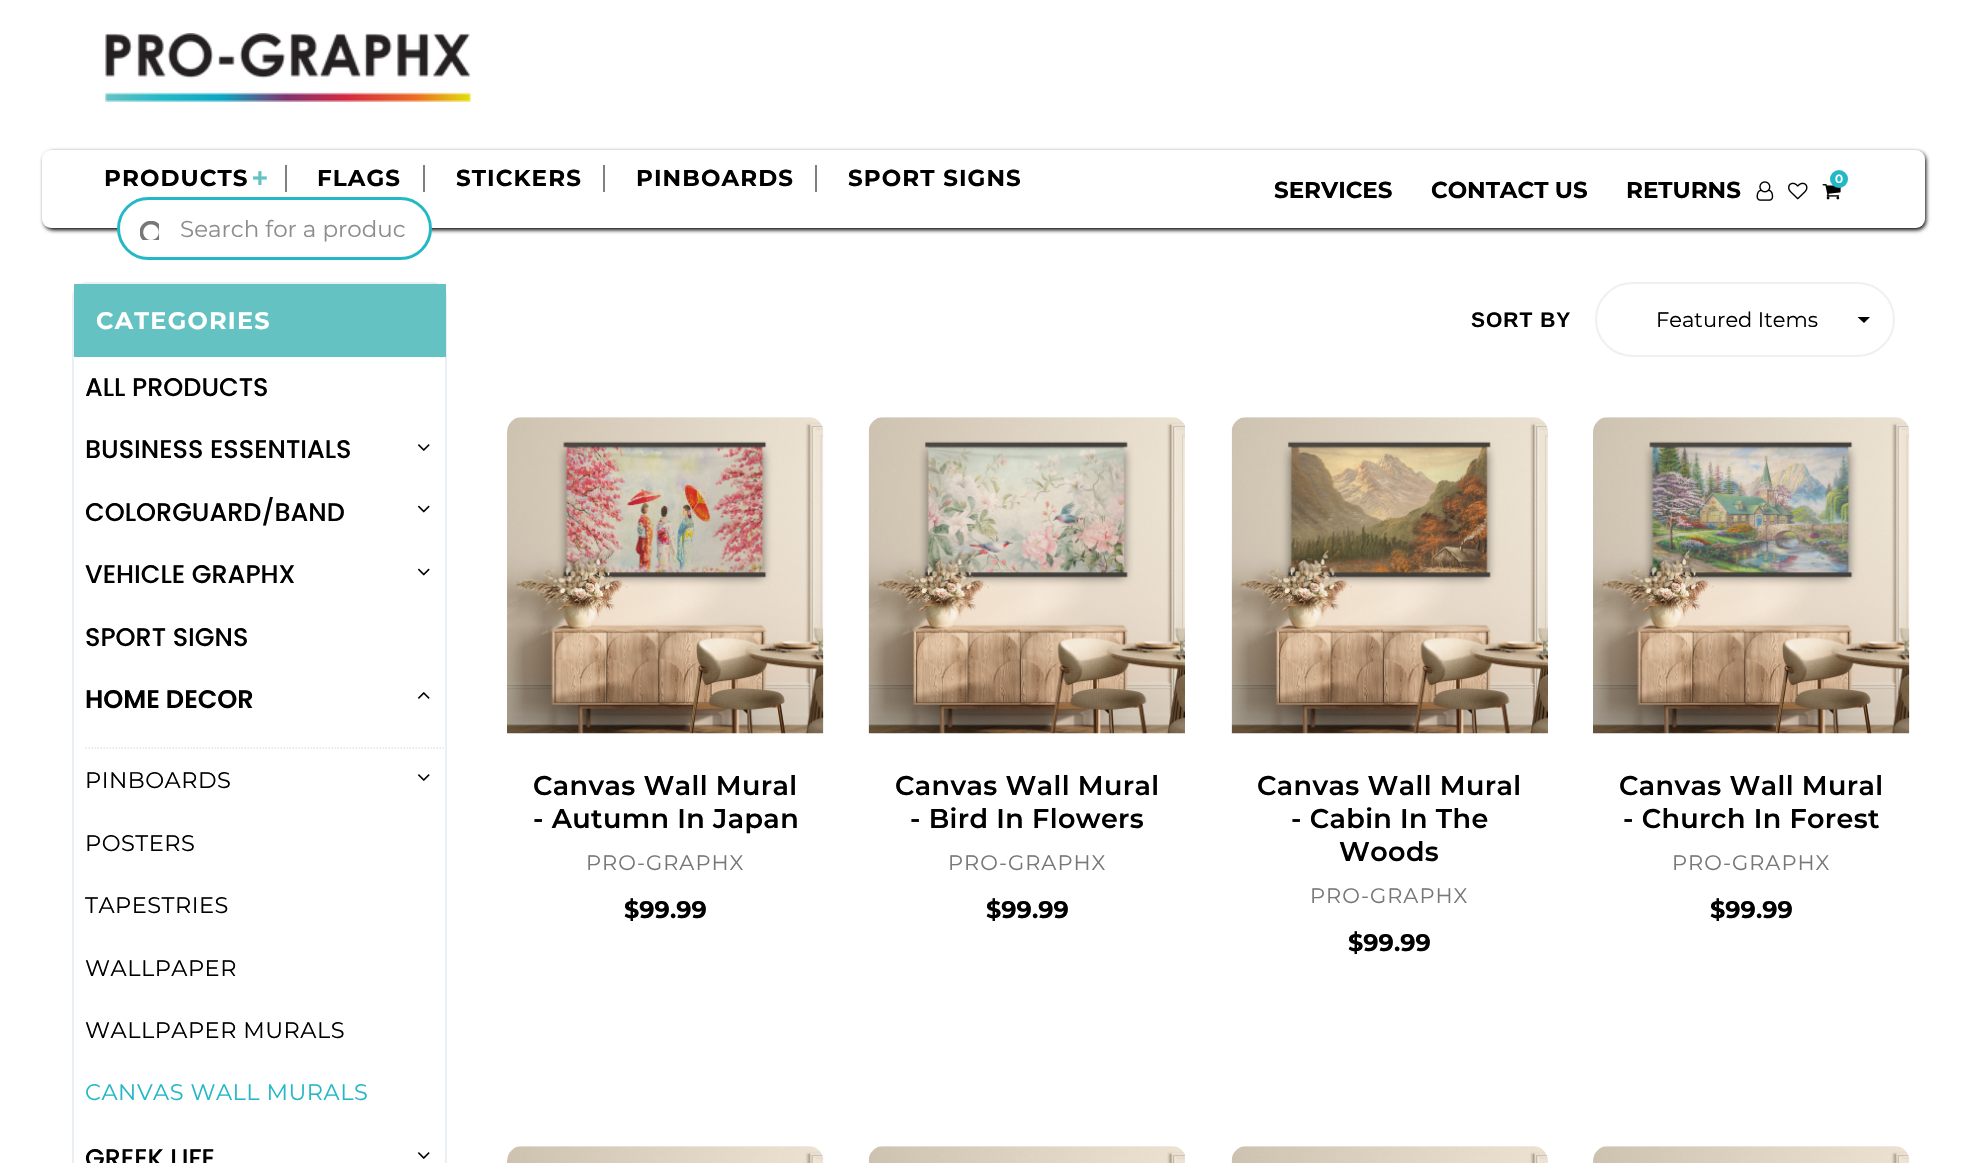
void draw(SkCanvas* canvas) {
	SkPaint fill;
	fill.setAntiAlias(true);
	auto makeFont = [&](const char* family, int weight, float size, bool italic = false) {
		SkFontStyle style(weight, SkFontStyle::kNormal_Width,
			italic ? SkFontStyle::kItalic_Slant : SkFontStyle::kUpright_Slant);
		SkFont result(fontMgr->matchFamilyStyle(family, style), size);
		result.setSubpixel(true);
		return result;
	};
	auto text = [&](const char* s, float x, float y, const SkFont& font) {
		canvas->drawString(s, x, y, font, fill);
	};
	auto spacedText = [&](const char* s, float x, float y, const SkFont& font, const SkPaint& ink, float letter, float word) {
		std::vector<SkGlyphID> glyphs(font.countText(s, strlen(s), SkTextEncoding::kUTF8));
		std::vector<float> xs(glyphs.size());
		font.textToGlyphs(s, strlen(s), SkTextEncoding::kUTF8, glyphs);
		font.getXPos(glyphs, xs, x);
		float extra = 0;
		for (size_t i = 0; i < glyphs.size(); i++) {
			xs[i] += extra;
			extra += letter + word * (glyphs[i] == font.unicharToGlyph(' '));
		}
		canvas->drawTextBlob(SkTextBlob::MakeFromPosHGlyphs(glyphs, xs, y, font), 0, 0, ink);
	};
	auto box = [&](float l, float t, float r, float b) {
		canvas->drawRect(SkRect::MakeLTRB(l, t, r, b), fill);
	};
	auto roundBox = [&](float l, float t, float r, float b, float radius) {
		canvas->drawRoundRect(SkRect::MakeLTRB(l, t, r, b), radius, radius, fill);
	};
	auto picture = [&](const char* path, float l, float t, float r, float b) {
		auto image = SkImages::DeferredFromEncodedData(SkData::MakeFromFileName(path));
		canvas->drawImageRect(image, SkRect::MakeLTRB(l, t, r, b), SkSamplingOptions());
	};
	canvas->clear(0xFFFFFFFF);
	picture("image0.png", 105, 33, 471, 102);
	fill.setColor(0xFF000000);
	fill.setMaskFilter(SkMaskFilter::MakeBlur(kNormal_SkBlurStyle, 2));
	canvas->drawRoundRect(SkRect::MakeLTRB(44, 152, 1926, 230), 9, 9, fill);
	fill.setMaskFilter(nullptr);
	fill.setColor(0xFFFFFFFF);
	roundBox(42, 150, 1925, 228, 9);
	fill.setColor(0xFF808080);
	box(285, 165, 287, 192);
	box(423, 165, 425, 192);
	box(603, 165, 605, 192);
	box(815, 165, 817, 192);
	fill.setColor(0xFFFFFFFF);
	canvas->drawRoundRect(SkRect::MakeLTRB(118.5f, 198.5f, 430.5f, 258.5f), 30, 30, fill);
	fill.setStyle(SkPaint::kStroke_Style);
	fill.setStrokeWidth(3);
	fill.setColor(0xFF24B8C6);
	canvas->drawRoundRect(SkRect::MakeLTRB(118.5f, 198.5f, 430.5f, 258.5f), 30, 30, fill);
	picture("image1.png", 140, 221, 159, 240);
	picture("image2.png", 1822, 184, 1841, 200);
	fill.setStyle(SkPaint::kFill_Style);
	canvas->drawCircle(1839, 179, 9, fill);
	picture("image3.png", 1756, 181, 1774, 201);
	picture("image4.png", 1788, 182, 1808, 200);
	fill.setStyle(SkPaint::kStroke_Style);
	fill.setStrokeWidth(2);
	fill.setColor(0xFFEAEFF4);
	canvas->drawRoundRect(SkRect::MakeLTRB(73, 283, 446, 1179), 14, 14, fill);
	fill.setStyle(SkPaint::kFill_Style);
	fill.setColor(0xFF64C2C2);
	box(74, 284, 446, 357);
	picture("image5.png", 418, 444, 430, 451);
	picture("image6.png", 417, 505, 430, 513);
	picture("image6.png", 417, 568, 430, 576);
	picture("image7.png", 418, 692, 430, 699);
	fill.setStyle(SkPaint::kStroke_Style);
	fill.setStrokeWidth(1.5f);
	fill.setColor(0xFFE5E5E5);
	fill.setPathEffect(SkDashPathEffect::Make({{1.5f, 1.5f}}, 0));
	canvas->drawPath(SkPathBuilder().moveTo(85.5f, 748).lineTo(445.5f, 748).detach(), fill);
	fill.setPathEffect(nullptr);
	picture("image5.png", 418, 774, 430, 781);
	picture("image5.png", 418, 1152, 430, 1159);
	canvas->save();
	canvas->clipRect(SkRect::MakeLTRB(1857, 317, 1871, 323));
	fill.setStyle(SkPaint::kFill_Style);
	fill.setColor(0xFF000000);
	canvas->drawPath(SkPathBuilder().moveTo(1857, 316.5f).lineTo(1864, 323).lineTo(1870.5f, 316.5f).close().detach(), fill);
	canvas->restore();
	fill.setStyle(SkPaint::kStroke_Style);
	fill.setStrokeWidth(2);
	fill.setColor(0xFFF0F0F0);
	canvas->drawRoundRect(SkRect::MakeLTRB(1596, 283, 1894, 356), 36.5f, 36.5f, fill);
	picture("image8.png", 507, 417, 824, 734);
	picture("image9.png", 868, 417, 1185, 734);
	picture("image10.png", 1231, 417, 1548, 734);
	picture("image11.png", 1593, 417, 1910, 734);
	picture("image12.png", 507, 1146, 824, 1163);
	picture("image13.png", 868, 1146, 1185, 1163);
	picture("image14.png", 1231, 1146, 1548, 1163);
	picture("image15.png", 1593, 1146, 1910, 1163);
	auto font1 = makeFont("Montserrat", 700, 23);
	fill.setStyle(SkPaint::kFill_Style);
	fill.setColor(0xFF000000);
	spacedText("PRODUCTS", 104, 186, font1, fill, 1.1f, 0);
	auto font2 = makeFont("Liberation Sans", 700, 27);
	fill.setColor(0xFF64C2C2);
	spacedText("+", 252, 187, font2, fill, 1.1f, 0);
	fill.setColor(0xFF000000);
	spacedText("FLAGS", 317, 186, font1, fill, 1.1f, 0);
	spacedText("STICKERS", 456, 186, font1, fill, 1.1f, 0);
	spacedText("PINBOARDS", 636, 186, font1, fill, 1.1f, 0);
	spacedText("SPORT SIGNS", 848, 186, font1, fill, 1.1f, 0);
	auto font3 = makeFont("Montserrat", 400, 23);
	fill.setColor(0xFF8D8D8D);
	text("Search for a produc", 180, 237, font3);
	auto font4 = makeFont("Montserrat", 600, 12);
	fill.setColor(0xFFFFFFFF);
	text("0", 1835, 183, font4);
	fill.setColor(0xFF000000);
	text("SERVICES", 1274, 198, font1);
	text("CONTACT US", 1431, 198, font1);
	text("RETURNS", 1626, 198, font1);
	auto font5 = makeFont("Montserrat", 700, 24);
	fill.setColor(0xFFFFFFFF);
	spacedText("CATEGORIES", 96, 329, font5, fill, 1.25f, 0);
	auto font6 = makeFont("Poppins", 500, 25.5f);
	fill.setColor(0xFF000000);
	text("ALL PRODUCTS", 85, 396, font6);
	text("BUSINESS ESSENTIALS", 85, 458, font6);
	text("COLORGUARD/BAND", 85, 521, font6);
	text("VEHICLE GRAPHX", 85, 583, font6);
	text("SPORT SIGNS", 85, 646, font6);
	auto font7 = makeFont("Poppins", 600, 25.5f);
	text("HOME DECOR", 85, 708, font7);
	auto font8 = makeFont("Montserrat", 400, 22.5f);
	spacedText("PINBOARDS", 85, 788, font8, fill, 0.5f, 0);
	spacedText("POSTERS", 85, 851, font8, fill, 0.5f, 0);
	spacedText("TAPESTRIES", 85, 913, font8, fill, 0.5f, 0);
	spacedText("WALLPAPER", 85, 976, font8, fill, 0.5f, 0);
	spacedText("WALLPAPER MURALS", 85, 1038, font8, fill, 0.5f, 0);
	fill.setColor(0xFF24B8C6);
	spacedText("CANVAS WALL MURALS", 85, 1100, font8, fill, 0.5f, 0);
	fill.setColor(0xFF000000);
	text("GREEK LIFE", 85, 1167, font6);
	auto font9 = makeFont("Arimo", 700, 21);
	spacedText("SORT BY", 1471, 327, font9, fill, 1, 0);
	auto font10 = makeFont("Montserrat", 400, 21);
	text("Featured Items", 1656, 327, font10);
	auto font11 = makeFont("Montserrat", 600, 27);
	spacedText("Canvas Wall Mural", 533, 795, font11, fill, 0.4f, 0);
	spacedText("- Autumn In Japan", 533, 828, font11, fill, 0.4f, 0);
	fill.setColor(0xFF777777);
	spacedText("PRO-GRAPHX", 586, 870, font10, fill, 1, 0);
	fill.setColor(0xFF000000);
	text("$99.99", 624, 918, font5);
	spacedText("Canvas Wall Mural", 895, 795, font11, fill, 0.4f, 0);
	spacedText("- Bird In Flowers", 910, 828, font11, fill, 0.4f, 0);
	fill.setColor(0xFF777777);
	spacedText("PRO-GRAPHX", 948, 870, font10, fill, 1, 0);
	fill.setColor(0xFF000000);
	text("$99.99", 986, 918, font5);
	spacedText("Canvas Wall Mural", 1257, 795, font11, fill, 0.4f, 0);
	spacedText("- Cabin In The", 1291, 828, font11, fill, 0.4f, 0);
	spacedText("Woods", 1339, 861, font11, fill, 0.4f, 0);
	fill.setColor(0xFF777777);
	spacedText("PRO-GRAPHX", 1310, 903, font10, fill, 1, 0);
	fill.setColor(0xFF000000);
	text("$99.99", 1348, 951, font5);
	spacedText("Canvas Wall Mural", 1619, 795, font11, fill, 0.4f, 0);
	spacedText("- Church In Forest", 1623, 828, font11, fill, 0.4f, 0);
	fill.setColor(0xFF777777);
	spacedText("PRO-GRAPHX", 1672, 870, font10, fill, 1, 0);
	fill.setColor(0xFF000000);
	text("$99.99", 1710, 918, font5);
}
